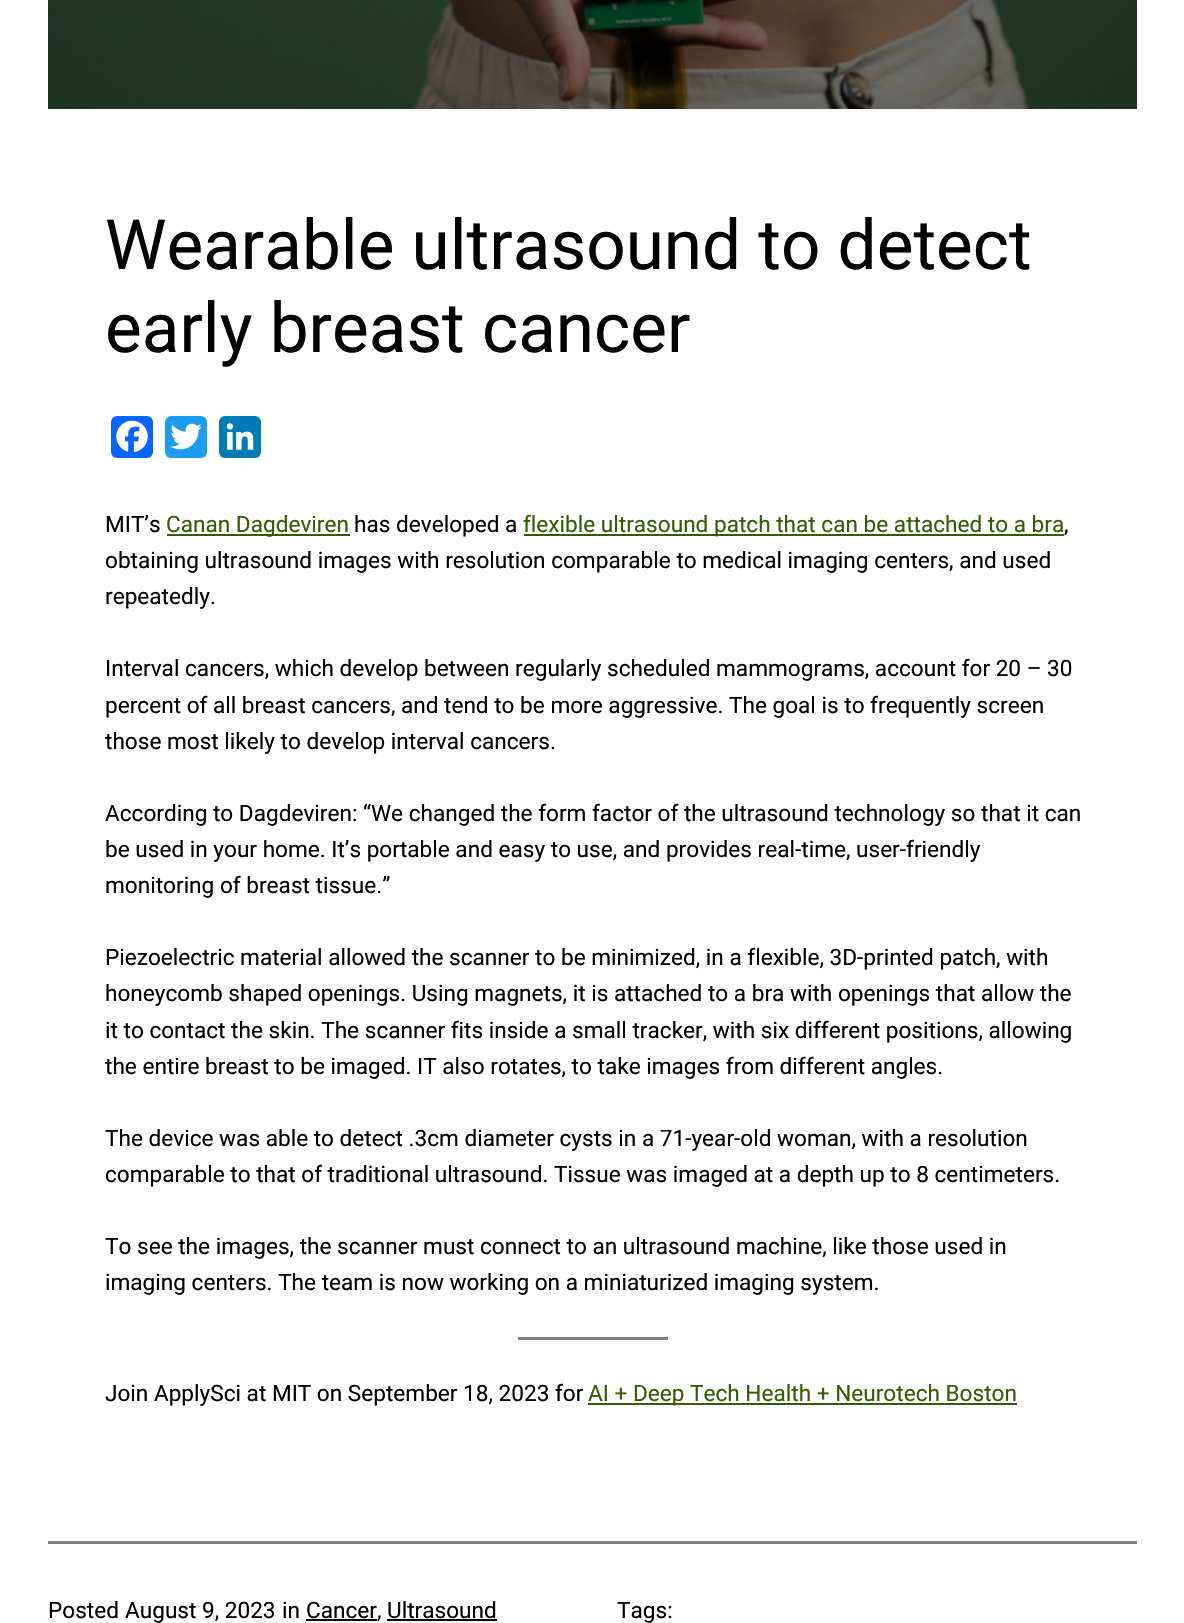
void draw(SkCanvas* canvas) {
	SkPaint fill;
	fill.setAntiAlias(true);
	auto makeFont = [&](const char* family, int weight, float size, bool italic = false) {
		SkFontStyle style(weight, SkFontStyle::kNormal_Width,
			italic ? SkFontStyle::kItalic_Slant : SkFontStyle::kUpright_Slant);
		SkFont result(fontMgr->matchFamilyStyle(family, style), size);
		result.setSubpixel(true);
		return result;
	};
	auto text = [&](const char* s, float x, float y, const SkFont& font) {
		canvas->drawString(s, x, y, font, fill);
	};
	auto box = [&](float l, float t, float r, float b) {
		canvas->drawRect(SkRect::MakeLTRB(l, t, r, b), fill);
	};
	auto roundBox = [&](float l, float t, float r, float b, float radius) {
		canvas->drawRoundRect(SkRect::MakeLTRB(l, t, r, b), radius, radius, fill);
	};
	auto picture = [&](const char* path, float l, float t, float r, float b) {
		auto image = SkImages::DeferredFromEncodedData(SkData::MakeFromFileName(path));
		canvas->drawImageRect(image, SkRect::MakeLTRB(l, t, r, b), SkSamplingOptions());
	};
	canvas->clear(0xFFFFFFFF);
	picture("image0.png", 48, 0, 1137, 109);
	fill.setColor(0xFF0866FF);
	roundBox(111, 416, 153, 458, 6);
	picture("image1.png", 116, 420, 148, 453);
	fill.setColor(0xFF1D9BF0);
	roundBox(165, 416, 207, 458, 6);
	picture("image2.png", 170, 423, 202, 450);
	fill.setColor(0xFF007BB5);
	roundBox(219, 416, 261, 458, 6);
	picture("image3.png", 226, 423, 254, 450);
	fill.setColor(0xFF345C00);
	box(167, 534, 350, 536);
	box(524, 534, 1064, 536);
	fill.setColor(0xFF808080);
	box(518, 1337, 668, 1340);
	fill.setColor(0xFF345C00);
	box(588, 1403, 1017, 1405);
	fill.setColor(0xFF808080);
	box(48, 1541, 1137, 1544);
	fill.setColor(0xFF000000);
	box(306, 1619, 377, 1621);
	box(387, 1619, 497, 1621);
	auto font1 = makeFont("Roboto", 400, 69.25f);
	text("Wearable ultrasound to detect", 105, 269, font1);
	text("early breast cancer", 105, 352, font1);
	auto font2 = makeFont("Roboto", 400, 22.6f);
	text("MIT’s", 105, 532, font2);
	fill.setColor(0xFF345C00);
	text("Canan Dagdeviren", 166, 532, font2);
	fill.setColor(0xFF000000);
	text("has developed a", 354, 532, font2);
	fill.setColor(0xFF345C00);
	text("flexible ultrasound patch that can be attached to a bra", 523, 532, font2);
	fill.setColor(0xFF000000);
	text(",", 1064, 532, font2);
	text("obtaining ultrasound images with resolution comparable to medical imaging centers, and used", 105, 568, font2);
	text("repeatedly.", 105, 604, font2);
	text("Interval cancers, which develop between regularly scheduled mammograms, account for 20 – 30", 105, 676, font2);
	text("percent of all breast cancers, and", 105, 713, font2);
	text("tend to be more aggressive. The goal is to frequently screen", 444, 713, font2);
	text("those most likely to develop interval cancers.", 105, 749, font2);
	text("According to Dagdeviren: “We changed the form factor of the ultrasound technology so that it can", 105, 821, font2);
	text("be used in your home. It’s portable and easy to use, and provides real-time, user-friendly", 105, 857, font2);
	text("monitoring of breast tissue.”", 105, 893, font2);
	text("Piezoelectric material allowed the scanner to be minimized, in a flexible, 3D-printed patch, with", 105, 965, font2);
	text("honeycomb shaped openings. Using magnets, it is attached to a bra with openings that allow the", 105, 1001, font2);
	text("it to contact the skin. The scanner fits inside a small tracker, with six different positions, allowing", 105, 1038, font2);
	text("the entire breast to be imaged. IT also rotates, to take images from different angles.", 105, 1074, font2);
	text("The device was able to detect .3cm diameter cysts in a 71-year-old woman, with a resolution", 105, 1146, font2);
	text("comparable to that of traditional ultrasound. Tissue was imaged at a depth up to 8 centimeters.", 105, 1182, font2);
	text("To see the images, the scanner must connect to an ultrasound machine, like those used in", 105, 1254, font2);
	text("imaging centers. The team is now working on a miniaturized imaging system.", 105, 1290, font2);
	text("Join ApplySci at MIT on September 18, 2023 for", 105, 1401, font2);
	fill.setColor(0xFF345C00);
	text("AI + Deep Tech Health + Neurotech Boston", 588, 1401, font2);
	fill.setColor(0xFF000000);
	text("Posted", 48, 1618, font2);
	text("August 9, 2023", 125, 1618, font2);
	text("in", 282, 1618, font2);
	text("Cancer, Ultrasound", 306, 1618, font2);
	text("Tags:", 617, 1618, font2);
}
